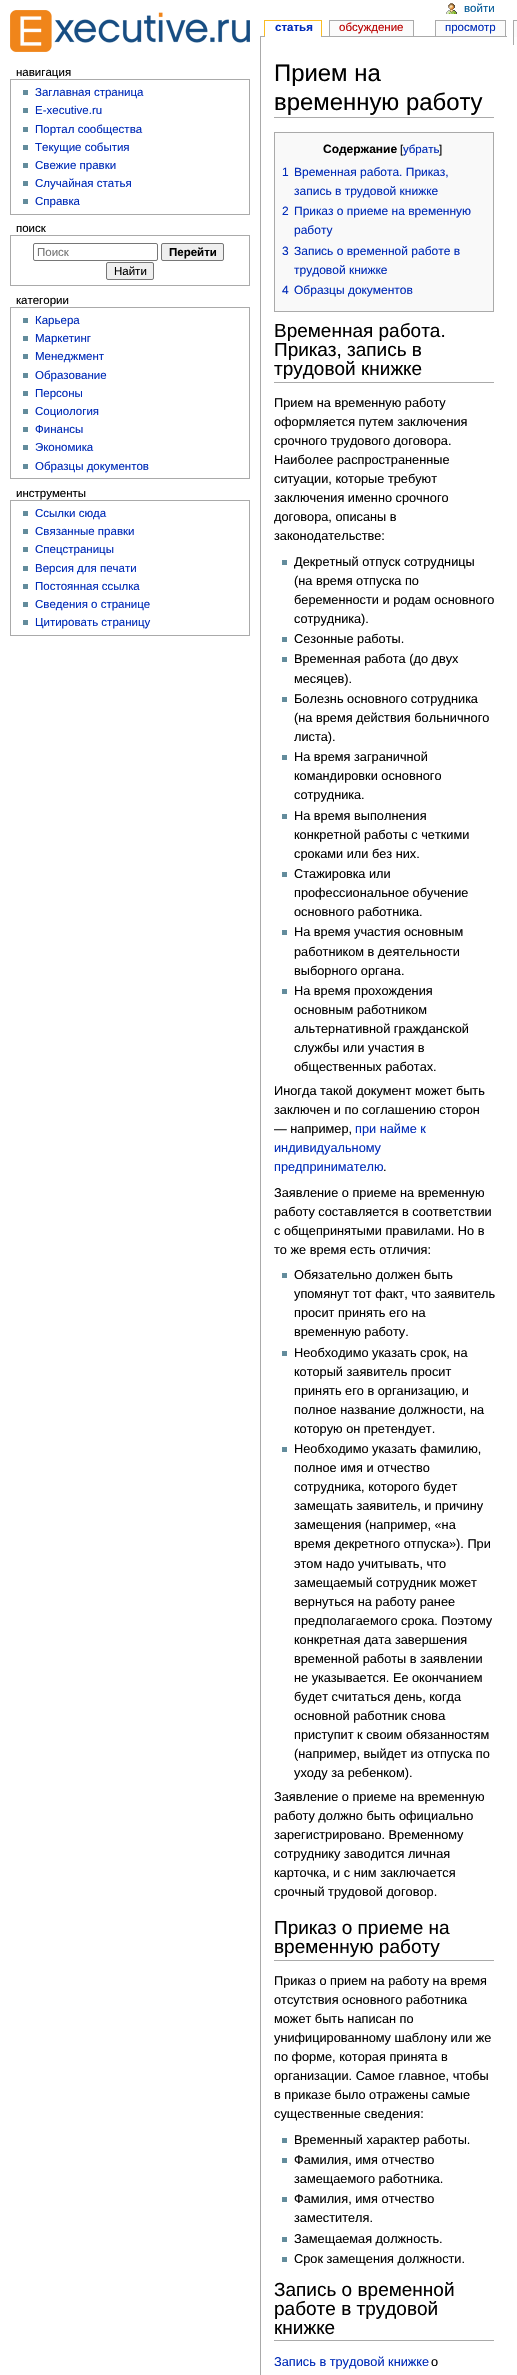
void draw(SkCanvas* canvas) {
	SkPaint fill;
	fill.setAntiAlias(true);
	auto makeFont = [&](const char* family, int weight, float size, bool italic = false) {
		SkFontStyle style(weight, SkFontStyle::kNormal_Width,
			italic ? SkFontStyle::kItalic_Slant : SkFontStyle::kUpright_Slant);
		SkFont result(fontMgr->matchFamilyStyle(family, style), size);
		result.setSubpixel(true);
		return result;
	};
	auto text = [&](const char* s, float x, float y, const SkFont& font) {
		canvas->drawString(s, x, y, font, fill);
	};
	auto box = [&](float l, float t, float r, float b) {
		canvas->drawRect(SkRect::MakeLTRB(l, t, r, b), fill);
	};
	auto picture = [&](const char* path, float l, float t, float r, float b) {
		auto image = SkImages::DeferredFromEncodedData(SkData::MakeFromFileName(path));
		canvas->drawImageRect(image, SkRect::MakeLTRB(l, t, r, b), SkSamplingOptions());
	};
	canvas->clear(0xFFFFFFFF);
	picture("image0.png", 446, 3, 457, 14);
	picture("image1.png", 10, 10, 250, 52);
	fill.setColor(0xFFAAAAAA);
	box(513, 20, 517, 21);
	fill.setColor(0xFFFABD23);
	box(264, 20, 322, 21);
	box(321, 20, 322, 36);
	box(264, 20, 265, 36);
	fill.setColor(0xFFAAAAAA);
	box(260, 36, 507, 37);
	fill.setColor(0xFFFFFFFF);
	box(265, 36, 321, 37);
	fill.setColor(0xFFAAAAAA);
	box(329, 20, 414, 21);
	box(413, 20, 414, 36);
	box(329, 20, 330, 36);
	fill.setColor(0xFFFBFBFB);
	box(330, 21, 413, 36);
	fill.setColor(0xFFAAAAAA);
	box(435, 20, 506, 21);
	box(505, 20, 506, 36);
	box(435, 20, 436, 36);
	fill.setColor(0xFFFBFBFB);
	box(436, 21, 505, 36);
	fill.setColor(0xFFAAAAAA);
	box(513, 20, 514, 45);
	fill.setColor(0xFFFBFBFB);
	box(514, 21, 517, 37);
	fill.setStyle(SkPaint::kStroke_Style);
	fill.setStrokeWidth(1);
	fill.setColor(0xFFAAAAAA);
	canvas->drawRect(SkRect::MakeLTRB(10.5f, 79.5f, 249.5f, 214.5f), fill);
	fill.setStyle(SkPaint::kFill_Style);
	fill.setColor(0xFF638C9C);
	box(23, 90, 28, 95);
	box(23, 108, 28, 113);
	box(23, 127, 28, 132);
	box(23, 145, 28, 150);
	box(23, 163, 28, 168);
	box(23, 181, 28, 186);
	box(23, 199, 28, 204);
	fill.setStyle(SkPaint::kStroke_Style);
	fill.setColor(0xFFAAAAAA);
	canvas->drawRect(SkRect::MakeLTRB(10.5f, 235.5f, 249.5f, 285.5f), fill);
	fill.setColor(0xFF767676);
	canvas->drawRoundRect(SkRect::MakeLTRB(33.5f, 243.5f, 157.5f, 260.5f), 1.5f, 1.5f, fill);
	fill.setStyle(SkPaint::kFill_Style);
	fill.setColor(0xFFEFEFEF);
	canvas->drawRoundRect(SkRect::MakeLTRB(161.5f, 243.5f, 223.5f, 260.5f), 1.5f, 1.5f, fill);
	fill.setStyle(SkPaint::kStroke_Style);
	fill.setColor(0xFF767676);
	canvas->drawRoundRect(SkRect::MakeLTRB(161.5f, 243.5f, 223.5f, 260.5f), 1.5f, 1.5f, fill);
	fill.setStyle(SkPaint::kFill_Style);
	fill.setColor(0xFFEFEFEF);
	canvas->drawRoundRect(SkRect::MakeLTRB(106.5f, 262.5f, 153.5f, 279.5f), 1.5f, 1.5f, fill);
	fill.setStyle(SkPaint::kStroke_Style);
	fill.setColor(0xFF767676);
	canvas->drawRoundRect(SkRect::MakeLTRB(106.5f, 262.5f, 153.5f, 279.5f), 1.5f, 1.5f, fill);
	fill.setColor(0xFFAAAAAA);
	canvas->drawRect(SkRect::MakeLTRB(10.5f, 307.5f, 249.5f, 478.5f), fill);
	fill.setStyle(SkPaint::kFill_Style);
	fill.setColor(0xFF638C9C);
	box(23, 318, 28, 323);
	box(23, 336, 28, 341);
	box(23, 354, 28, 359);
	box(23, 373, 28, 378);
	box(23, 391, 28, 396);
	box(23, 409, 28, 414);
	box(23, 427, 28, 432);
	box(23, 445, 28, 450);
	box(23, 464, 28, 469);
	fill.setStyle(SkPaint::kStroke_Style);
	fill.setColor(0xFFAAAAAA);
	canvas->drawRect(SkRect::MakeLTRB(10.5f, 500.5f, 249.5f, 635.5f), fill);
	fill.setStyle(SkPaint::kFill_Style);
	fill.setColor(0xFF638C9C);
	box(23, 511, 28, 516);
	box(23, 529, 28, 534);
	box(23, 547, 28, 552);
	box(23, 566, 28, 571);
	box(23, 584, 28, 589);
	box(23, 602, 28, 607);
	box(23, 620, 28, 625);
	fill.setColor(0xFFAAAAAA);
	box(260, 36, 261, 2375);
	box(274, 117, 494, 118);
	fill.setColor(0xFFF9F9F9);
	canvas->drawRect(SkRect::MakeLTRB(274.5f, 132.5f, 493.5f, 311.5f), fill);
	fill.setStyle(SkPaint::kStroke_Style);
	fill.setColor(0xFFAAAAAA);
	canvas->drawRect(SkRect::MakeLTRB(274.5f, 132.5f, 493.5f, 311.5f), fill);
	fill.setStyle(SkPaint::kFill_Style);
	box(274, 382, 494, 383);
	fill.setColor(0xFF638C9C);
	box(282, 560, 287, 565);
	box(282, 637, 287, 642);
	box(282, 657, 287, 662);
	box(282, 697, 287, 702);
	box(282, 755, 287, 760);
	box(282, 814, 287, 819);
	box(282, 872, 287, 877);
	box(282, 930, 287, 935);
	box(282, 989, 287, 994);
	box(282, 1273, 287, 1278);
	box(282, 1351, 287, 1356);
	box(282, 1447, 287, 1452);
	fill.setColor(0xFFAAAAAA);
	box(274, 1960, 494, 1961);
	fill.setColor(0xFF638C9C);
	box(282, 2138, 287, 2143);
	box(282, 2158, 287, 2163);
	box(282, 2197, 287, 2202);
	box(282, 2237, 287, 2242);
	box(282, 2257, 287, 2262);
	fill.setColor(0xFFAAAAAA);
	box(274, 2340, 494, 2341);
	auto font1 = makeFont("Liberation Sans", 400, 11.5f);
	fill.setColor(0xFF005896);
	text("войти", 464, 12, font1);
	auto font2 = makeFont("Liberation Sans", 700, 11.5f);
	fill.setColor(0xFF002BB8);
	text("статья", 275, 31, font2);
	fill.setColor(0xFFBA0000);
	text("обсуждение", 339, 31, font1);
	fill.setColor(0xFF002BB8);
	text("просмотр", 445, 31, font1);
	fill.setColor(0xFF000000);
	text("навигация", 16, 76, font1);
	fill.setColor(0xFF002BB8);
	text("Заглавная страница", 35, 96, font1);
	text("E-xecutive.ru", 35, 114, font1);
	text("Портал сообщества", 35, 133, font1);
	text("Текущие события", 35, 151, font1);
	text("Свежие правки", 35, 169, font1);
	text("Случайная статья", 35, 187, font1);
	text("Справка", 35, 205, font1);
	fill.setColor(0xFF000000);
	text("поиск", 16, 232, font1);
	fill.setColor(0xFF757575);
	text("Поиск", 37, 256, font1);
	fill.setColor(0xFF000000);
	text("Перейти", 169, 256, font2);
	text("Найти", 114, 275, font1);
	text("категории", 16, 304, font1);
	fill.setColor(0xFF002BB8);
	text("Карьера", 35, 324, font1);
	text("Маркетинг", 35, 342, font1);
	text("Менеджмент", 35, 360, font1);
	text("Образование", 35, 379, font1);
	text("Персоны", 35, 397, font1);
	text("Социология", 35, 415, font1);
	text("Финансы", 35, 433, font1);
	text("Экономика", 35, 451, font1);
	text("Образцы документов", 35, 470, font1);
	fill.setColor(0xFF000000);
	text("инструменты", 16, 497, font1);
	fill.setColor(0xFF002BB8);
	text("Ссылки сюда", 35, 517, font1);
	text("Связанные правки", 35, 535, font1);
	text("Спецстраницы", 35, 553, font1);
	text("Версия для печати", 35, 572, font1);
	text("Постоянная ссылка", 35, 590, font1);
	text("Сведения о странице", 35, 608, font1);
	text("Цитировать страницу", 35, 626, font1);
	auto font3 = makeFont("Liberation Sans", 400, 23.9f);
	fill.setColor(0xFF000000);
	text("Прием на", 274, 81, font3);
	text("временную работу", 274, 110, font3);
	auto font4 = makeFont("Liberation Sans", 700, 12);
	text("Содержание", 323, 153, font4);
	text("[", 400, 153, font1);
	fill.setColor(0xFF002BB8);
	text("убрать", 403, 153, font1);
	fill.setColor(0xFF000000);
	text("]", 439, 153, font1);
	auto font5 = makeFont("Liberation Sans", 400, 12);
	fill.setColor(0xFF002BB8);
	text("1", 282, 176, font5);
	text("Временная работа. Приказ,", 294, 176, font5);
	text("запись в трудовой книжке", 294, 195, font5);
	text("2", 282, 215, font5);
	text("Приказ о приеме на временную", 294, 215, font5);
	text("работу", 294, 234, font5);
	text("3", 282, 255, font5);
	text("Запись о временной работе в", 294, 255, font5);
	text("трудовой книжке", 294, 274, font5);
	text("4", 282, 294, font5);
	text("Образцы документов", 294, 294, font5);
	auto font6 = makeFont("Liberation Sans", 400, 19);
	fill.setColor(0xFF000000);
	text("Временная работа.", 274, 337, font6);
	text("Приказ, запись в", 274, 356, font6);
	text("трудовой книжке", 274, 375, font6);
	auto font7 = makeFont("Liberation Sans", 400, 12.75f);
	text("Прием на временную работу", 274, 407, font7);
	text("оформляется путем заключения", 274, 426, font7);
	text("срочного трудового договора.", 274, 445, font7);
	text("Наиболее распространенные", 274, 464, font7);
	text("ситуации, которые требуют", 274, 483, font7);
	text("заключения именно срочного", 274, 502, font7);
	text("договора, описаны в", 274, 521, font7);
	text("законодательстве:", 274, 540, font7);
	text("Декретный отпуск сотрудницы", 294, 566, font7);
	text("(на время отпуска по", 294, 585, font7);
	text("беременности и родам основного", 294, 604, font7);
	text("сотрудника).", 294, 623, font7);
	text("Сезонные работы.", 294, 643, font7);
	text("Временная работа (до двух", 294, 663, font7);
	text("месяцев).", 294, 683, font7);
	text("Болезнь основного сотрудника", 294, 703, font7);
	text("(на время действия больничного", 294, 722, font7);
	text("листа).", 294, 741, font7);
	text("На время заграничной", 294, 761, font7);
	text("командировки основного", 294, 780, font7);
	text("сотрудника.", 294, 799, font7);
	text("На время выполнения", 294, 820, font7);
	text("конкретной работы с четкими", 294, 839, font7);
	text("сроками или без них.", 294, 858, font7);
	text("Стажировка или", 294, 878, font7);
	text("профессиональное обучение", 294, 897, font7);
	text("основного работника.", 294, 916, font7);
	text("На время участия основным", 294, 936, font7);
	text("работником в деятельности", 294, 956, font7);
	text("выборного органа.", 294, 975, font7);
	text("На время прохождения", 294, 995, font7);
	text("основным работником", 294, 1014, font7);
	text("альтернативной гражданской", 294, 1033, font7);
	text("службы или участия в", 294, 1052, font7);
	text("общественных работах.", 294, 1071, font7);
	text("Иногда такой документ может быть", 274, 1095, font7);
	text("заключен и по соглашению сторон", 274, 1114, font7);
	text("— например,", 274, 1133, font7);
	fill.setColor(0xFF002BB8);
	text("при найме к", 355, 1133, font7);
	text("индивидуальному", 274, 1152, font7);
	text("предпринимателю", 274, 1171, font7);
	fill.setColor(0xFF000000);
	text(".", 383, 1171, font7);
	text("Заявление о приеме на временную", 274, 1197, font7);
	text("работу составляется в соответствии", 274, 1216, font7);
	text("с общепринятыми правилами. Но в", 274, 1235, font7);
	text("то же время есть отличия:", 274, 1254, font7);
	text("Обязательно должен быть", 294, 1279, font7);
	text("упомянут тот факт, что заявитель", 294, 1298, font7);
	text("просит принять его на", 294, 1317, font7);
	text("временную работу.", 294, 1336, font7);
	text("Необходимо указать срок, на", 294, 1357, font7);
	text("который заявитель просит", 294, 1376, font7);
	text("принять его в организацию, и", 294, 1395, font7);
	text("полное название должности, на", 294, 1414, font7);
	text("которую он претендует.", 294, 1433, font7);
	text("Необходимо указать фамилию,", 294, 1453, font7);
	text("полное имя и отчество", 294, 1472, font7);
	text("сотрудника, которого будет", 294, 1491, font7);
	text("замещать заявитель, и причину", 294, 1510, font7);
	text("замещения (например, «на", 294, 1529, font7);
	text("время декретного отпуска»). При", 294, 1548, font7);
	text("этом надо учитывать, что", 294, 1568, font7);
	text("замещаемый сотрудник может", 294, 1587, font7);
	text("вернуться на работу ранее", 294, 1606, font7);
	text("предполагаемого срока. Поэтому", 294, 1625, font7);
	text("конкретная дата завершения", 294, 1644, font7);
	text("временной работы в заявлении", 294, 1663, font7);
	text("не указывается. Ее окончанием", 294, 1682, font7);
	text("будет считаться день, когда", 294, 1701, font7);
	text("основной работник снова", 294, 1720, font7);
	text("приступит к своим обязанностям", 294, 1739, font7);
	text("(например, выйдет из отпуска по", 294, 1758, font7);
	text("уходу за ребенком).", 294, 1777, font7);
	text("Заявление о приеме на временную", 274, 1801, font7);
	text("работу должно быть официально", 274, 1820, font7);
	text("зарегистрировано. Временному", 274, 1839, font7);
	text("сотруднику заводится личная", 274, 1858, font7);
	text("карточка, и с ним заключается", 274, 1877, font7);
	text("срочный трудовой договор.", 274, 1896, font7);
	text("Приказ о приеме на", 274, 1934, font6);
	text("временную работу", 274, 1953, font6);
	text("Приказ о прием на работу на время", 274, 1985, font7);
	text("отсутствия основного работника", 274, 2004, font7);
	text("может быть написан по", 274, 2023, font7);
	text("унифицированному шаблону или же", 274, 2042, font7);
	text("по форме, которая принята в", 274, 2061, font7);
	text("организации. Самое главное, чтобы", 274, 2080, font7);
	text("в приказе было отражены самые", 274, 2099, font7);
	text("существенные сведения:", 274, 2118, font7);
	text("Временный характер работы.", 294, 2144, font7);
	text("Фамилия, имя отчество", 294, 2164, font7);
	text("замещаемого работника.", 294, 2183, font7);
	text("Фамилия, имя отчество", 294, 2203, font7);
	text("заместителя.", 294, 2222, font7);
	text("Замещаемая должность.", 294, 2243, font7);
	text("Срок замещения должности.", 294, 2263, font7);
	text("Запись о временной", 274, 2296, font6);
	text("работе в трудовой", 274, 2315, font6);
	text("книжке", 274, 2334, font6);
	fill.setColor(0xFF002BB8);
	text("Запись в трудовой книжке", 274, 2366, font7);
	fill.setColor(0xFF000000);
	text("о", 431, 2366, font7);
}
